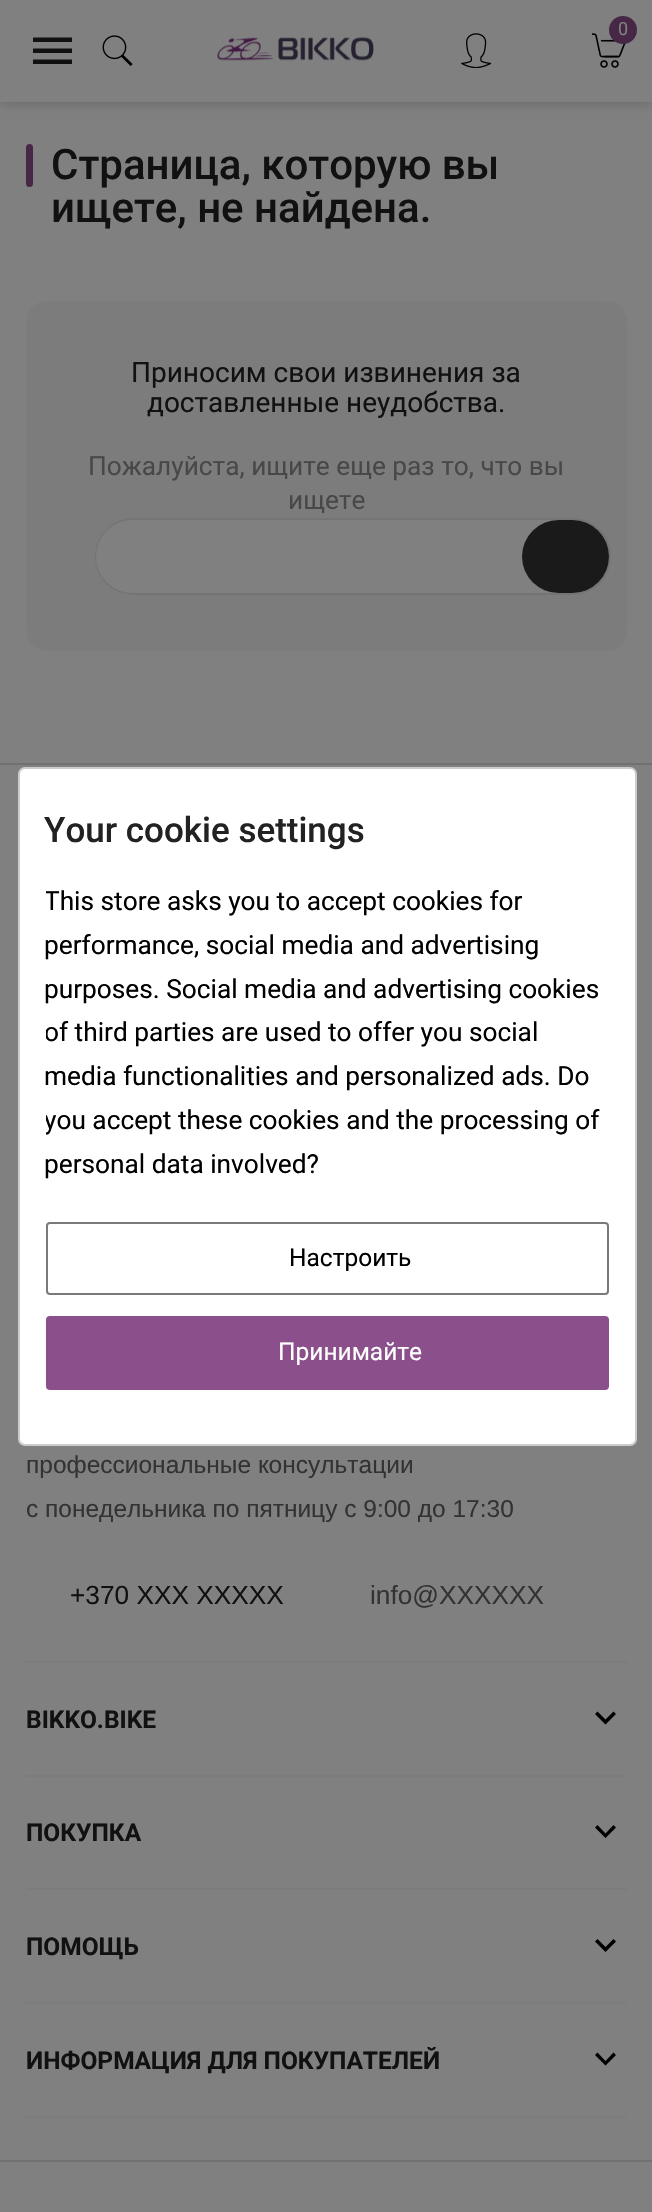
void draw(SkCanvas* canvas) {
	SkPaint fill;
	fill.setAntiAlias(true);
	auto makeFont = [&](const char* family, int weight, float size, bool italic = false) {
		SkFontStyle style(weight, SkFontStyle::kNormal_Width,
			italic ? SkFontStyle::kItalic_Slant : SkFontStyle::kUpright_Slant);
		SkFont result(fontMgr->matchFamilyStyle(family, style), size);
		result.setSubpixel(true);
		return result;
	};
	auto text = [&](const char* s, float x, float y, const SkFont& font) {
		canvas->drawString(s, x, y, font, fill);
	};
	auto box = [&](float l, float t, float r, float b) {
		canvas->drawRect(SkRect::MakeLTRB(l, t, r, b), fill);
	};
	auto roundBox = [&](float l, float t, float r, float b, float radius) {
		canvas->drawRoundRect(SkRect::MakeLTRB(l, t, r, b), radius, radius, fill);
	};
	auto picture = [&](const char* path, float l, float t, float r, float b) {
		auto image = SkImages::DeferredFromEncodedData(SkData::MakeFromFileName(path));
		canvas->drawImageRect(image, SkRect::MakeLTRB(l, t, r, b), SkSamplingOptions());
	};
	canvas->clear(0xFF808080);
	fill.setColor(0x3B000000);
	fill.setMaskFilter(SkMaskFilter::MakeBlur(kNormal_SkBlurStyle, 6));
	canvas->drawRect(SkRect::MakeLTRB(0, 0, 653, 102), fill);
	fill.setMaskFilter(nullptr);
	fill.setColor(0xFF808080);
	box(0, 0, 652, 102);
	picture("image0.png", 592, 33, 626, 68);
	fill.setColor(0xFF462846);
	canvas->drawCircle(623, 30, 14, fill);
	picture("image1.png", 461, 33, 492, 68);
	picture("image2.png", 217, 37, 374, 61);
	fill.setColor(0xFF111111);
	canvas->drawPath(SkPathBuilder().moveTo(33, 37.5f).lineTo(72, 37.5f).lineTo(72, 42).lineTo(33, 42).close().moveTo(33, 53).lineTo(33, 48.5f).lineTo(72, 48.5f).lineTo(72, 53).close().moveTo(33, 64).lineTo(33, 59.5f).lineTo(72, 59.5f).lineTo(72, 64).close().detach(), fill);
	picture("image3.png", 102, 35, 133, 66);
	fill.setColor(0xFF462846);
	roundBox(26, 144, 33, 187, 3.5f);
	fill.setColor(0xFF7C7C7C);
	roundBox(26, 301, 627, 651, 21);
	fill.setStyle(SkPaint::kStroke_Style);
	fill.setStrokeWidth(2);
	fill.setColor(0xFF747474);
	canvas->drawRoundRect(SkRect::MakeLTRB(96, 519, 610, 594), 37.5f, 37.5f, fill);
	fill.setStyle(SkPaint::kFill_Style);
	fill.setColor(0xFF808080);
	roundBox(96, 520, 609, 593, 36.5f);
	fill.setColor(0xFF1A1A1A);
	roundBox(522, 520, 609, 593, 36.5f);
	fill.setColor(0xFF717171);
	box(0, 763, 652, 765);
	fill.setColor(0xFF7C7C7C);
	box(26, 2116, 627, 2118);
	box(26, 1661, 627, 1663);
	fill.setColor(0xFF000000);
	canvas->drawPath(SkPathBuilder().moveTo(605.5f, 1724.5f).lineTo(595, 1714).lineTo(597.5f, 1711.5f).lineTo(605.5f, 1719.5f).lineTo(613.5f, 1711.5f).lineTo(616, 1714).close().detach(), fill);
	fill.setColor(0xFF7C7C7C);
	box(26, 1775, 627, 1777);
	fill.setColor(0xFF000000);
	canvas->drawPath(SkPathBuilder().moveTo(605.5f, 1838).lineTo(595, 1827.5f).lineTo(597.5f, 1825).lineTo(605.5f, 1833.5f).lineTo(613.5f, 1825).lineTo(616, 1827.5f).close().detach(), fill);
	fill.setColor(0xFF7C7C7C);
	box(26, 1888, 627, 1890);
	fill.setColor(0xFF000000);
	canvas->drawPath(SkPathBuilder().moveTo(605.5f, 1952).lineTo(595, 1941.5f).lineTo(597.5f, 1939).lineTo(605.5f, 1947).lineTo(613.5f, 1939).lineTo(616, 1941.5f).close().detach(), fill);
	fill.setColor(0xFF7C7C7C);
	box(26, 2002, 627, 2004);
	fill.setColor(0xFF000000);
	canvas->drawPath(SkPathBuilder().moveTo(605.5f, 2065.5f).lineTo(595, 2055).lineTo(597.5f, 2052.5f).lineTo(605.5f, 2061).lineTo(613.5f, 2052.5f).lineTo(616, 2055).close().detach(), fill);
	fill.setColor(0xFF717171);
	box(0, 2160, 652, 2162);
	fill.setColor(0xFFFFFFFF);
	canvas->drawRoundRect(SkRect::MakeLTRB(19, 768, 636, 1445), 6, 6, fill);
	fill.setStyle(SkPaint::kStroke_Style);
	fill.setColor(0xFFCCCCCC);
	canvas->drawRoundRect(SkRect::MakeLTRB(19, 768, 636, 1445), 6, 6, fill);
	fill.setColor(0xFF7A7A7A);
	canvas->drawRoundRect(SkRect::MakeLTRB(47, 1223, 608, 1294), 3, 3, fill);
	fill.setStyle(SkPaint::kFill_Style);
	fill.setColor(0xFF8B508B);
	canvas->drawRoundRect(SkRect::MakeLTRB(47, 1317, 608, 1389), 3, 3, fill);
	fill.setStyle(SkPaint::kStroke_Style);
	canvas->drawRoundRect(SkRect::MakeLTRB(47, 1317, 608, 1389), 3, 3, fill);
	auto font1 = makeFont("Roboto", 400, 18);
	fill.setStyle(SkPaint::kFill_Style);
	fill.setColor(0xFF808080);
	text("0", 618, 35, font1);
	auto font2 = makeFont("Roboto", 500, 42);
	fill.setColor(0xFF111111);
	text("Страница, которую вы", 51, 179, font2);
	text("ищете, не найдена.", 51, 222, font2);
	auto font3 = makeFont("Roboto", 400, 28);
	text("Приносим свои извинения за", 131, 382, font3);
	text("доставленные неудобства.", 147, 412, font3);
	auto font4 = makeFont("Roboto", 400, 26.25f);
	fill.setColor(0xFF484848);
	text("Пожалуйста, ищите еще раз то, что вы", 88, 475, font4);
	text("ищете", 288, 509, font4);
	auto font5 = makeFont("Liberation Sans", 400, 24.5f);
	fill.setColor(0xFF333333);
	text("профессиональные консультации", 26, 1473, font5);
	text("с понедельника по пятницу с 9:00 до 17:30", 26, 1517, font5);
	auto font6 = makeFont("Liberation Sans", 400, 26.25f);
	fill.setColor(0xFF111111);
	text("+370 XXX XXXXX", 70, 1604, font6);
	fill.setColor(0xFF333333);
	text("info@XXXXXX", 370, 1604, font6);
	auto font7 = makeFont("Roboto", 700, 24.5f);
	fill.setColor(0xFF111111);
	text("BIKKO.BIKE", 26, 1728, font7);
	text("ПОКУПКА", 26, 1841, font7);
	text("ПОМОЩЬ", 26, 1955, font7);
	text("ИНФОРМАЦИЯ ДЛЯ ПОКУПАТЕЛЕЙ", 26, 2069, font7);
	auto font8 = makeFont("Roboto", 500, 35);
	fill.setColor(0xFF222222);
	text("Your cookie settings", 44, 842, font8);
	canvas->save();
	canvas->clipRect(SkRect::MakeLTRB(46, 880, 609, 1187));
	fill.setColor(0xFF000000);
	text("This store asks you to accept cookies for", 44, 910, font4);
	canvas->restore();
	text("performance, social media and advertising", 44, 954, font4);
	text("purposes. Social media and advertising cookies", 44, 998, font4);
	canvas->save();
	canvas->clipRect(SkRect::MakeLTRB(46, 880, 609, 1187));
	text("of third parties are used to offer you social", 44, 1041, font4);
	canvas->restore();
	text("media functionalities and personalized ads. Do", 44, 1085, font4);
	canvas->save();
	canvas->clipRect(SkRect::MakeLTRB(46, 880, 609, 1187));
	text("you accept these cookies and the processing of", 44, 1129, font4);
	canvas->restore();
	text("personal data involved?", 44, 1173, font4);
	auto font9 = makeFont("Roboto", 400, 24.5f);
	text("Настроить", 289, 1266, font9);
	fill.setColor(0xFFFFFFFF);
	text("Принимайте", 278, 1360, font9);
}
